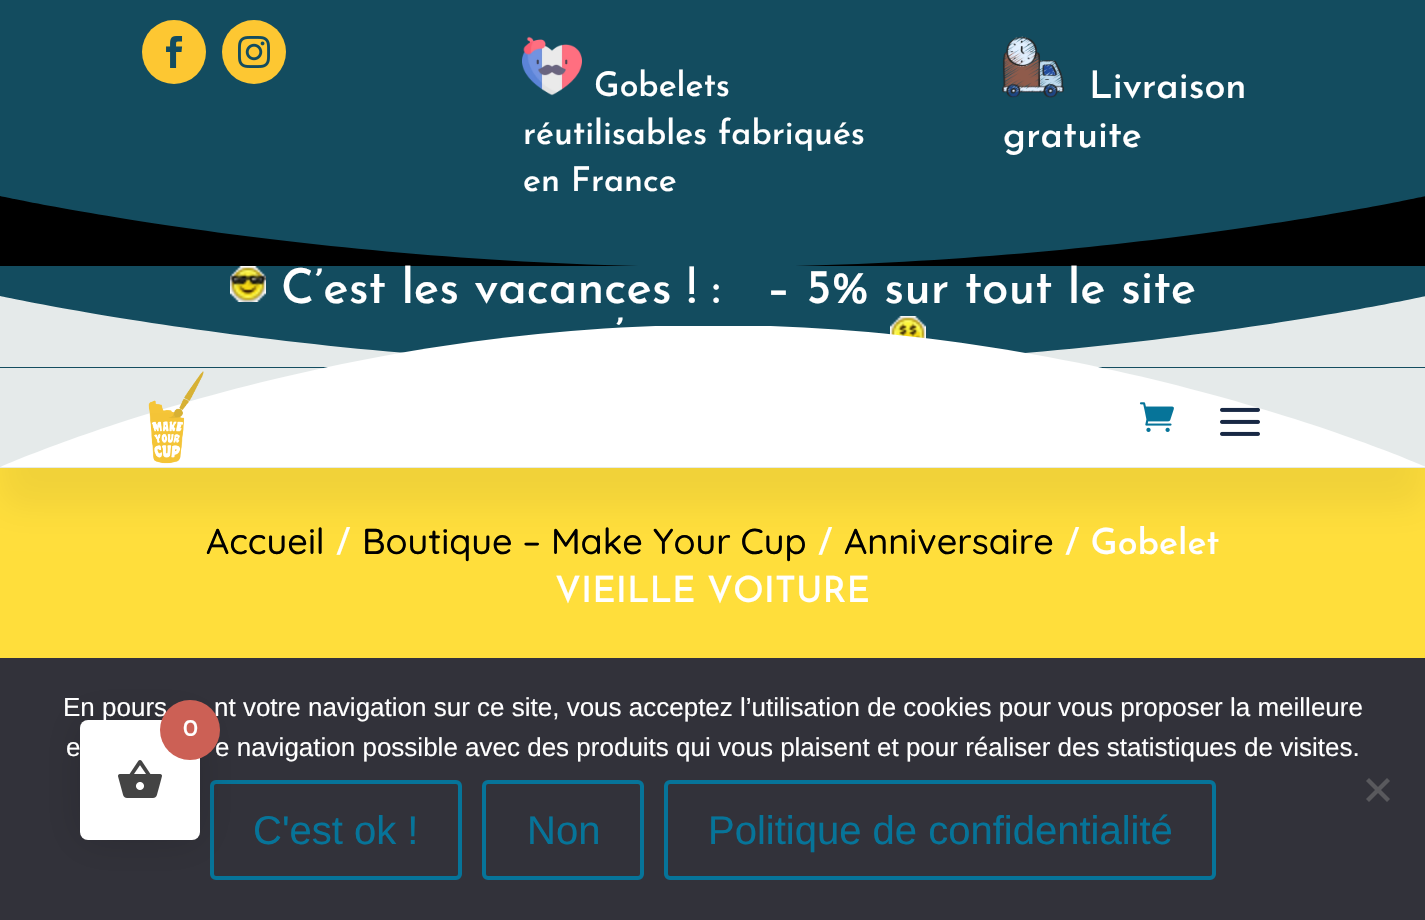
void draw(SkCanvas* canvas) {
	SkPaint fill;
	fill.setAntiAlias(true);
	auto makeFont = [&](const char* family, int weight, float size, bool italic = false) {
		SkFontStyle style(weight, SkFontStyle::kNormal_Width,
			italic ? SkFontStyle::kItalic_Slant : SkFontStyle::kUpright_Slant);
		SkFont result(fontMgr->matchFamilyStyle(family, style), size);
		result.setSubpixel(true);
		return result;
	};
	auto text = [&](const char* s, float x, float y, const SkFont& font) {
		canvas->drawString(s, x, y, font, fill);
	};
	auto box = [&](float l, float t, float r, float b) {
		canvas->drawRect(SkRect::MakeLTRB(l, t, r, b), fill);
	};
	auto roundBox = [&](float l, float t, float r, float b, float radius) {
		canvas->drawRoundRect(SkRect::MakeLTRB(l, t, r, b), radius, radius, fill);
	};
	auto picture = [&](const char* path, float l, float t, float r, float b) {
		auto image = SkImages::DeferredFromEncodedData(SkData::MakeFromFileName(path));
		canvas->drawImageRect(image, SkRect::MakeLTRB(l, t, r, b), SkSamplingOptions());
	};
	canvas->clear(0xFFFFDE3B);
	fill.setColor(0xFF134C5F);
	box(0, 0, 1425, 368);
	fill.setColor(0xFFFDC732);
	canvas->drawCircle(174, 52, 32, fill);
	picture("image0.png", 166, 36, 183, 68);
	canvas->drawCircle(254, 52, 32, fill);
	picture("image1.png", 238, 36, 270, 68);
	picture("image2.png", 522, 36, 582, 96);
	picture("image3.png", 1002, 36, 1064, 98);
	canvas->save();
	canvas->clipRect(SkRect::MakeLTRB(0, 196, 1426, 266));
	fill.setColor(0xFF000000);
	canvas->drawPath(SkPathBuilder().moveTo(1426, 267).lineTo(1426, 196).cubicTo(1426, 196, 1107, 267, 713, 267).cubicTo(319, 266, 0, 196, 0, 196).lineTo(0, 267).close().detach(), fill);
	canvas->restore();
	fill.setColor(0xFFE5EAEA);
	canvas->drawPath(SkPathBuilder().moveTo(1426, 367).lineTo(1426, 296).cubicTo(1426, 296, 1107, 367, 713, 367).cubicTo(319, 366, 0, 296, 0, 296).lineTo(0, 367).close().detach(), fill);
	picture("image4.png", 230, 266, 266, 302);
	picture("image5.png", 890, 316, 926, 339);
	fill.setColor(0x0F0A0A0A);
	fill.setMaskFilter(SkMaskFilter::MakeBlur(kNormal_SkBlurStyle, 18));
	canvas->drawRect(SkRect::MakeLTRB(0, 408, 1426, 508), fill);
	fill.setMaskFilter(nullptr);
	fill.setColor(0xFFE5EAEA);
	box(0, 368, 1425, 468);
	canvas->save();
	canvas->clipRect(SkRect::MakeLTRB(0, 326, 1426, 468));
	fill.setColor(0xFFFFFFFF);
	canvas->drawPath(SkPathBuilder().moveTo(713, 325).cubicTo(319, 325, 0, 467, 0, 467).lineTo(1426, 467).cubicTo(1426, 467, 1107, 325, 713, 325).close().detach(), fill);
	canvas->restore();
	picture("image6.png", 148, 371, 204, 464);
	picture("image7.png", 1139, 402, 1174, 432);
	picture("image8.png", 1220, 407, 1260, 436);
	fill.setColor(0xFF32323A);
	box(0, 658, 1425, 920);
	fill.setColor(0xFF59595D);
	canvas->drawPath(SkPathBuilder().moveTo(1387, 778).lineTo(1390, 781).lineTo(1369, 802).lineTo(1366, 799).close().detach(), fill);
	canvas->drawPath(SkPathBuilder().moveTo(1366, 781).lineTo(1369, 778).lineTo(1390, 799).lineTo(1387, 802).close().detach(), fill);
	fill.setStyle(SkPaint::kStroke_Style);
	fill.setStrokeWidth(4);
	fill.setColor(0xFF067499);
	canvas->drawRoundRect(SkRect::MakeLTRB(212, 782, 460, 878), 4, 4, fill);
	canvas->drawRoundRect(SkRect::MakeLTRB(484, 782, 642, 878), 4, 4, fill);
	canvas->drawRoundRect(SkRect::MakeLTRB(666, 782, 1214, 878), 4, 4, fill);
	fill.setStyle(SkPaint::kFill_Style);
	fill.setColor(0x26000000);
	fill.setMaskFilter(SkMaskFilter::MakeBlur(kNormal_SkBlurStyle, 20));
	canvas->drawRoundRect(SkRect::MakeLTRB(80, 720, 200, 840), 8, 8, fill);
	fill.setMaskFilter(nullptr);
	fill.setColor(0xFFFFFFFF);
	roundBox(80, 720, 200, 840, 8);
	picture("image9.png", 118, 760, 162, 798);
	auto font1 = makeFont("Josefin Sans", 100, 34);
	text("Gobelets", 594, 96, font1);
	text("réutilisables fabriqués", 523, 144, font1);
	text("en France", 523, 191, font1);
	auto font2 = makeFont("Josefin Sans", 100, 38);
	text("Livraison", 1089, 98, font2);
	text("gratuite", 1003, 147, font2);
	auto font3 = makeFont("Josefin Sans", 100, 48);
	text("C’est les vacances ! :   – 5% sur tout le site", 281, 303, font3);
	text("’", 615, 352, font3);
	auto font4 = makeFont("Quicksand", 300, 36);
	fill.setColor(0xFF000000);
	text("Accueil", 206, 554, font4);
	auto font5 = makeFont("Josefin Sans", 100, 36);
	fill.setColor(0xFFFFFFFF);
	text("/", 336, 554, font5);
	fill.setColor(0xFF000000);
	text("Boutique – Make Your Cup", 362, 554, font4);
	fill.setColor(0xFFFFFFFF);
	text("/", 818, 554, font5);
	fill.setColor(0xFF000000);
	text("Anniversaire", 844, 554, font4);
	fill.setColor(0xFFFFFFFF);
	text("/ Gobelet", 1065, 554, font5);
	text("VIEILLE VOITURE", 555, 602, font5);
	auto font6 = makeFont("Liberation Sans", 400, 26);
	text("En pours", 63, 716, font6);
	text("nt votre navigation sur ce site, vous acceptez l’utilisation de cookies pour vous proposer la meilleure", 214, 716, font6);
	text("e", 66, 756, font6);
	text("e navigation possible avec des produits qui vous plaisent et pour réaliser des statistiques de visites.", 215, 756, font6);
	auto font7 = makeFont("Liberation Sans", 400, 40);
	fill.setColor(0xFF067499);
	text("C'est ok !", 253, 844, font7);
	text("Non", 527, 844, font7);
	text("Politique de confidentialité", 708, 844, font7);
	fill.setColor(0xFFCC6055);
	canvas->drawCircle(190, 730, 30, fill);
	auto font8 = makeFont("Josefin Sans", 100, 24);
	fill.setColor(0xFFFFFFFF);
	text("0", 183, 736, font8);
}
